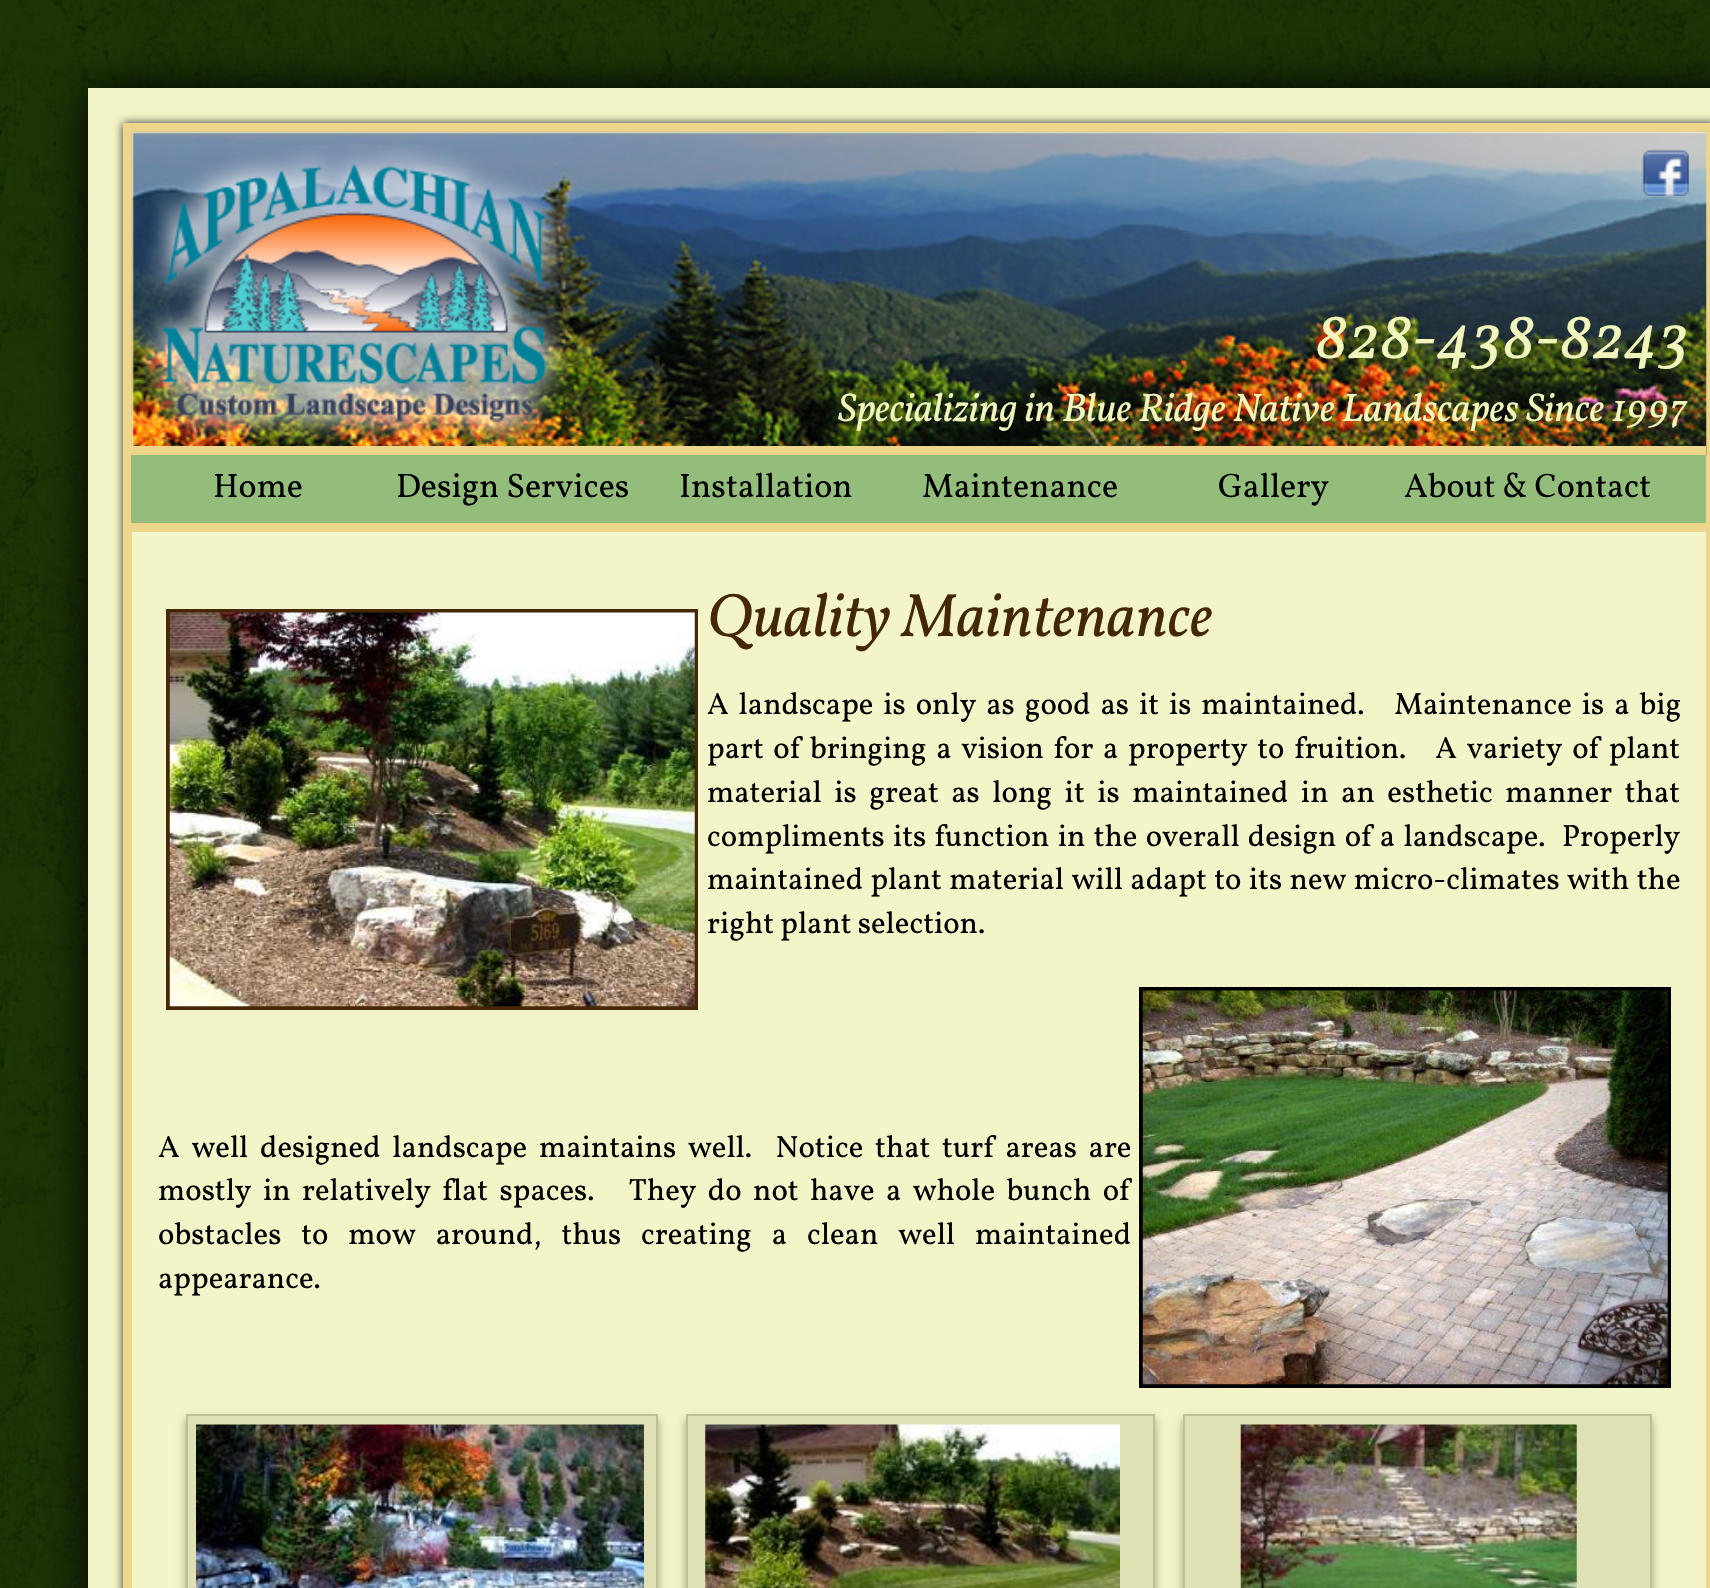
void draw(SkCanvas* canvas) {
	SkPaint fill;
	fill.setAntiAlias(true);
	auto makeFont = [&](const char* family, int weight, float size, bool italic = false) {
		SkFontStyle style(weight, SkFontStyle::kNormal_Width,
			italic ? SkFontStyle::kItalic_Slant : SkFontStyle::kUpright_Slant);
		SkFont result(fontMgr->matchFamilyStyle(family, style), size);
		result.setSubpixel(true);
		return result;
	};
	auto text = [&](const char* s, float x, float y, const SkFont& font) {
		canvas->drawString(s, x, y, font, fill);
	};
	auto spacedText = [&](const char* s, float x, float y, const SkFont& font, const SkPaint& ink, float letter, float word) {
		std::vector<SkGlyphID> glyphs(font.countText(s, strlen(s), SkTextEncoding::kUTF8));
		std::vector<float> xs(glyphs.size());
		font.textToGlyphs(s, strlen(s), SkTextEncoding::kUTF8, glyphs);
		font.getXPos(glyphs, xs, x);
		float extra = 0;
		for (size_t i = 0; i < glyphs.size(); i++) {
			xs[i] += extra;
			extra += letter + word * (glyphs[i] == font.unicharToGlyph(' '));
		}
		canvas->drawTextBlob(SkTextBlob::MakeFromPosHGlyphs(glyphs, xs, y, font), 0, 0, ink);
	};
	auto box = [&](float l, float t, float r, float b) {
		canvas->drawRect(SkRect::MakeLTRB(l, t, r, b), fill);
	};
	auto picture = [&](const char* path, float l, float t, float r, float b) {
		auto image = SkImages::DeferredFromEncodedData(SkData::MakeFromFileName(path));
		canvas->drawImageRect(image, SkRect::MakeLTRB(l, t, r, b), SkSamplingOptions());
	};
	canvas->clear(0xFFFFFFFF);
	picture("image0.png", 0, 0, 1710, 1588);
	fill.setColor(0xFF000000);
	fill.setMaskFilter(SkMaskFilter::MakeBlur(kNormal_SkBlurStyle, 22));
	canvas->drawRect(SkRect::MakeLTRB(88, 88, 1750, 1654), fill);
	fill.setMaskFilter(nullptr);
	fill.setColor(0xFFF3F4C8);
	box(88, 88, 1710, 1588);
	canvas->save();
	canvas->clipPath(SkPathBuilder(SkPathFillType::kEvenOdd).moveTo(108, 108).lineTo(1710, 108).lineTo(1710, 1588).lineTo(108, 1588).close().moveTo(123, 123).lineTo(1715, 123).lineTo(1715, 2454).lineTo(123, 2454).close().detach(), true);
	fill.setColor(0xFF333333);
	fill.setMaskFilter(SkMaskFilter::MakeBlur(kNormal_SkBlurStyle, 4.5f));
	canvas->drawRect(SkRect::MakeLTRB(123, 123, 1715, 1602), fill);
	fill.setMaskFilter(nullptr);
	canvas->restore();
	fill.setStyle(SkPaint::kStroke_Style);
	fill.setStrokeWidth(9);
	fill.setColor(0xFFEDD58B);
	canvas->drawRect(SkRect::MakeLTRB(127.5f, 127.5f, 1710.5f, 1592.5f), fill);
	picture("image1.png", 131, 131, 1707, 455);
	fill.setStyle(SkPaint::kFill_Style);
	box(131, 446, 1706, 455);
	picture("image2.png", 142, 145, 569, 443);
	picture("image3.png", 1641, 149, 1689, 196);
	fill.setColor(0xFF94BD7B);
	box(131, 455, 1706, 523);
	fill.setColor(0xFFEDD58B);
	box(132, 523, 1706, 532);
	fill.setStyle(SkPaint::kStroke_Style);
	fill.setStrokeWidth(4);
	fill.setColor(0xFF442707);
	canvas->drawRect(SkRect::MakeLTRB(168, 611, 696, 1008), fill);
	picture("image4.png", 169, 612, 695, 1007);
	fill.setColor(0xFF000000);
	canvas->drawRect(SkRect::MakeLTRB(1141, 989, 1669, 1386), fill);
	picture("image5.png", 1142, 990, 1668, 1385);
	fill.setStyle(SkPaint::kFill_Style);
	fill.setColor(0xFFA2A27E);
	fill.setMaskFilter(SkMaskFilter::MakeBlur(kNormal_SkBlurStyle, 4.5f));
	canvas->drawRect(SkRect::MakeLTRB(186, 1419, 658, 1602), fill);
	fill.setMaskFilter(nullptr);
	fill.setColor(0xFFDFE0B3);
	canvas->drawRect(SkRect::MakeLTRB(187, 1415, 657, 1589), fill);
	fill.setStyle(SkPaint::kStroke_Style);
	fill.setStrokeWidth(2);
	fill.setColor(0xFFBEBF94);
	canvas->drawRect(SkRect::MakeLTRB(187, 1415, 657, 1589), fill);
	picture("image6.png", 196, 1424, 644, 1588);
	fill.setStyle(SkPaint::kFill_Style);
	fill.setColor(0xFFA2A27E);
	fill.setMaskFilter(SkMaskFilter::MakeBlur(kNormal_SkBlurStyle, 4.5f));
	canvas->drawRect(SkRect::MakeLTRB(686, 1419, 1155, 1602), fill);
	fill.setMaskFilter(nullptr);
	fill.setColor(0xFFDFE0B3);
	canvas->drawRect(SkRect::MakeLTRB(687, 1415, 1154, 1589), fill);
	fill.setStyle(SkPaint::kStroke_Style);
	fill.setColor(0xFFBEBF94);
	canvas->drawRect(SkRect::MakeLTRB(687, 1415, 1154, 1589), fill);
	picture("image7.png", 705, 1424, 1120, 1588);
	fill.setStyle(SkPaint::kFill_Style);
	fill.setColor(0xFFA2A27E);
	fill.setMaskFilter(SkMaskFilter::MakeBlur(kNormal_SkBlurStyle, 4.5f));
	canvas->drawRect(SkRect::MakeLTRB(1183, 1419, 1652, 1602), fill);
	fill.setMaskFilter(nullptr);
	fill.setColor(0xFFDFE0B3);
	canvas->drawRect(SkRect::MakeLTRB(1184, 1415, 1651, 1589), fill);
	fill.setStyle(SkPaint::kStroke_Style);
	fill.setColor(0xFFBEBF94);
	canvas->drawRect(SkRect::MakeLTRB(1184, 1415, 1651, 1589), fill);
	picture("image8.png", 1240, 1424, 1577, 1588);
	auto font1 = makeFont("Vollkorn", 400, 64.75f, true);
	fill.setStyle(SkPaint::kFill_Style);
	fill.setColor(0xFFF1F6BC);
	text("828-438-8243", 1315, 358, font1);
	auto font2 = makeFont("Vollkorn", 400, 40, true);
	text("Specializing in Blue Ridge Native Landscapes Since 1997", 838, 421, font2);
	auto font3 = makeFont("Vollkorn", 400, 34);
	fill.setColor(0xFF000000);
	text("Home", 213, 497, font3);
	text("Design Services", 396, 497, font3);
	text("Installation", 679, 497, font3);
	text("Maintenance", 922, 497, font3);
	text("Gallery", 1218, 497, font3);
	text("About & Contact", 1404, 497, font3);
	auto font4 = makeFont("Vollkorn", 400, 61.5f, true);
	fill.setColor(0xFF442707);
	text("Quality Maintenance", 707, 636, font4);
	auto font5 = makeFont("Vollkorn", 400, 30.8f);
	fill.setColor(0xFF000000);
	spacedText("A landscape is only as good as it is maintained.   Maintenance is a big", 707, 714, font5, fill, 0, 3.75f);
	spacedText("part of bringing a vision for a property to fruition.   A variety of plant", 707, 758, font5, fill, 0, 3.5f);
	spacedText("material is great as long it is maintained in an esthetic manner that", 707, 802, font5, fill, 0, 6.4f);
	spacedText("compliments its function in the overall design of a landscape.  Properly", 707, 846, font5, fill, 0, 2.1f);
	spacedText("maintained plant material will adapt to its new micro-climates with the", 707, 889, font5, fill, 0, 1.25f);
	text("right plant selection.", 707, 933, font5);
	spacedText("A well designed landscape maintains well.  Notice that turf areas are", 158, 1157, font5, fill, 0, 5.6f);
	spacedText("mostly in relatively flat spaces.   They do not have a whole bunch of", 158, 1200, font5, fill, 0, 5.25f);
	spacedText("obstacles to mow around, thus creating a clean well maintained", 158, 1244, font5, fill, 0, 13.75f);
	text("appearance.", 158, 1288, font5);
}
